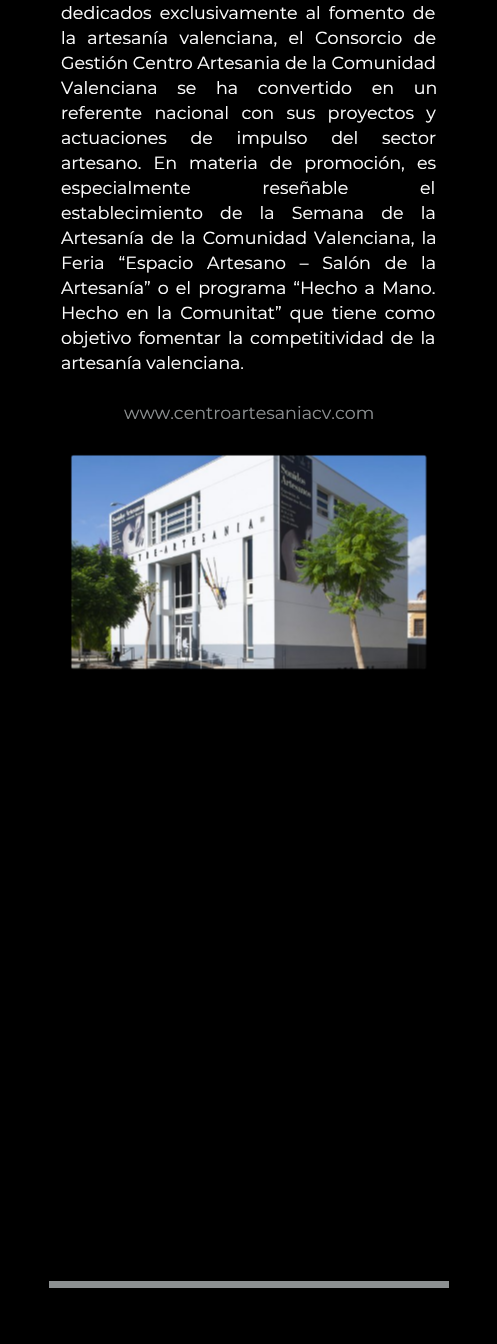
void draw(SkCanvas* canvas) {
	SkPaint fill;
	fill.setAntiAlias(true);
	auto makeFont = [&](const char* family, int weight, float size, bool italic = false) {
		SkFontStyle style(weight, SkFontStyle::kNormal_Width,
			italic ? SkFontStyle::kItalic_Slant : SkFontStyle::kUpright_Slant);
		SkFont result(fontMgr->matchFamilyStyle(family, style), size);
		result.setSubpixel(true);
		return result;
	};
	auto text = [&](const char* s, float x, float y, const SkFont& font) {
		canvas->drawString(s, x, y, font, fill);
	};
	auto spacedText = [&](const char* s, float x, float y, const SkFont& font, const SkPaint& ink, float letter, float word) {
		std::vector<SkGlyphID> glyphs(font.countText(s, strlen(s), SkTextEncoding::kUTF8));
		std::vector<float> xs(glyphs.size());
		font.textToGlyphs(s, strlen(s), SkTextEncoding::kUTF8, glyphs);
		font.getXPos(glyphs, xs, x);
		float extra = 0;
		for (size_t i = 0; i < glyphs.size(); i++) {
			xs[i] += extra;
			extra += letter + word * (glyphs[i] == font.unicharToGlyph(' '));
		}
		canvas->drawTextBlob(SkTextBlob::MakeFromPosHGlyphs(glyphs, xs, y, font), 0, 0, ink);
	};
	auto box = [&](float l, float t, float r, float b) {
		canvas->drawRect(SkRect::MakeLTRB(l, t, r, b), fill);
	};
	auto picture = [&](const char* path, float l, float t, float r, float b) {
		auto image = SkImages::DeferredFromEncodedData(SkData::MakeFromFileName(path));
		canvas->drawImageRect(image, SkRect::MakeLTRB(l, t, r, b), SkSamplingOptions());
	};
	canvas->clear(0xFF000000);
	picture("image0.png", 70, 454, 427, 670);
	fill.setColor(0xFF8C9091);
	box(49, 1281, 449, 1288);
	auto font1 = makeFont("Montserrat", 400, 17.5f);
	fill.setColor(0xFFFFFFFF);
	spacedText("dedicados exclusivamente al fomento de", 61, 19, font1, fill, 0, 3.5f);
	spacedText("la artesanía valenciana, el Consorcio de", 61, 44, font1, fill, 0, 6.75f);
	text("Gestión Centro Artesania de la Comunidad", 61, 69, font1);
	spacedText("Valenciana se ha convertido en un", 61, 94, font1, fill, 0, 15);
	spacedText("referente nacional con sus proyectos y", 61, 119, font1, fill, 0, 7.75f);
	spacedText("actuaciones de impulso del sector", 61, 144, font1, fill, 0, 19);
	spacedText("artesano. En materia de promoción, es", 61, 169, font1, fill, 0, 7.5f);
	spacedText("especialmente reseñable el", 61, 194, font1, fill, 0, 67);
	spacedText("establecimiento de la Semana de la", 61, 219, font1, fill, 0, 12.5f);
	spacedText("Artesanía de la Comunidad Valenciana, la", 61, 244, font1, fill, 0, 2.5f);
	spacedText("Feria “Espacio Artesano – Salón de la", 61, 269, font1, fill, 0, 9.25f);
	spacedText("Artesanía” o el programa “Hecho a Mano.", 61, 294, font1, fill, 0, 2.5f);
	spacedText("Hecho en la Comunitat” que tiene como", 61, 319, font1, fill, 0, 3.5f);
	spacedText("objetivo fomentar la competitividad de la", 61, 344, font1, fill, 0, 2.5f);
	text("artesanía valenciana.", 61, 369, font1);
	fill.setColor(0xFF8C9091);
	text("www.centroartesaniacv.com", 124, 419, font1);
}
